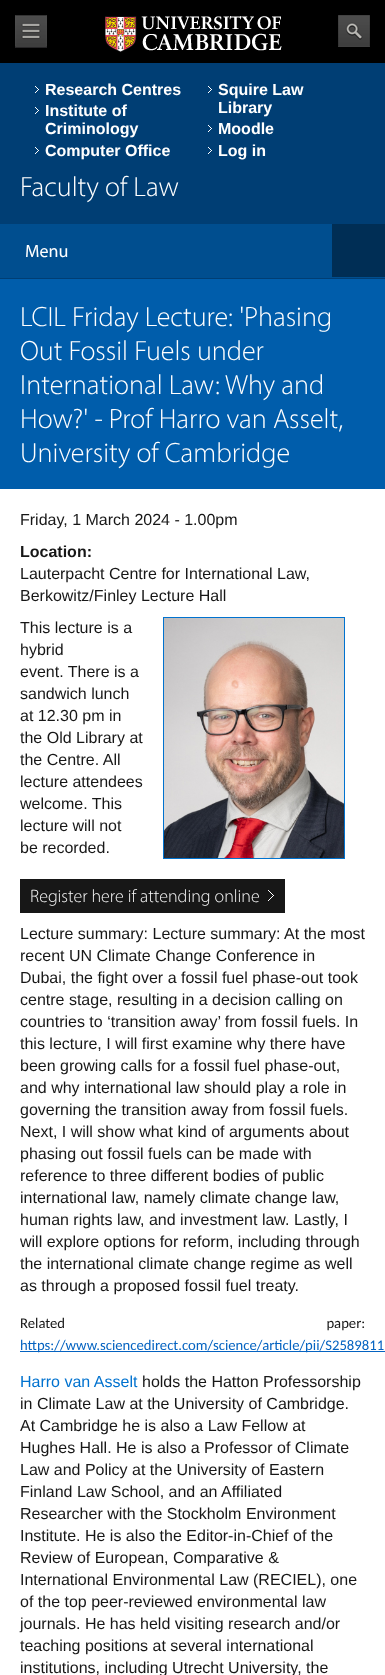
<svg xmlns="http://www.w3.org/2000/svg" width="385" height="1675">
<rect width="100%" height="100%" fill="#000"/>
<image x="15" y="15" width="32" height="33" href="media/1.png"/>
<image x="105" y="16" width="177" height="36" href="media/2.png"/>
<image x="338" y="15" width="32" height="32" href="media/3.png"/>
<rect y="63" width="385" height="161" fill="#003e74"/>
<image x="35" y="86" width="4" height="7" href="media/4.png"/>
<text x="45" y="95" style="font-family:Liberation Sans;font-size:16px;font-weight:bold;fill:#fff">Research Centres</text>
<image x="208" y="86" width="4" height="7" href="media/4.png"/>
<text x="218" y="95" style="font-family:Liberation Sans;font-size:16px;font-weight:bold;fill:#fff">Squire Law</text>
<text x="218" y="113" style="font-family:Liberation Sans;font-size:16px;font-weight:bold;fill:#fff">Library</text>
<image x="35" y="107" width="4" height="7" href="media/4.png"/>
<text x="45" y="116" style="font-family:Liberation Sans;font-size:16px;font-weight:bold;fill:#fff">Institute of</text>
<text x="45" y="134" style="font-family:Liberation Sans;font-size:16px;font-weight:bold;fill:#fff">Criminology</text>
<image x="208" y="125" width="4" height="7" href="media/4.png"/>
<text x="218" y="134" style="font-family:Liberation Sans;font-size:16px;font-weight:bold;fill:#fff">Moodle</text>
<image x="35" y="147" width="4" height="7" href="media/4.png"/>
<text x="45" y="156" style="font-family:Liberation Sans;font-size:16px;font-weight:bold;fill:#fff">Computer Office</text>
<image x="208" y="147" width="4" height="7" href="media/4.png"/>
<text x="218" y="156" style="font-family:Liberation Sans;font-size:16px;font-weight:bold;fill:#fff">Log in</text>
<text x="20" y="196" style="font-family:Myriad;font-size:28px;font-weight:300;fill:#fff">Faculty of Law</text>
<rect y="224" width="385" height="54" fill="#004e8f"/>
<rect y="278" width="385" height="1" fill="#003e74"/>
<text x="25" y="257" style="font-family:Myriad;font-size:18px;fill:#fff">Menu</text>
<rect x="332" y="224" width="53" height="53" fill="#002e55"/>
<rect y="279" width="385" height="210" fill="#005dab"/>
<text x="20" y="326" style="font-family:Myriad;font-size:28px;font-weight:300;fill:#fff">LCIL Friday Lecture: 'Phasing</text>
<text x="20" y="360" style="font-family:Myriad;font-size:28px;font-weight:300;fill:#fff">Out Fossil Fuels under</text>
<text x="20" y="394" style="font-family:Myriad;font-size:28px;font-weight:300;fill:#fff">International Law: Why and</text>
<text x="20" y="428" style="font-family:Myriad;font-size:28px;font-weight:300;fill:#fff">How?' - Prof Harro van Asselt,</text>
<text x="20" y="462" style="font-family:Myriad;font-size:28px;font-weight:300;fill:#fff">University of Cambridge</text>
<rect y="489" width="385" height="1186" fill="#fff"/>
<text x="20" y="525" style="font-family:Liberation Sans;font-size:16px;fill:#171717">Friday, 1 March 2024 - 1.00pm</text>
<text x="20" y="557" style="font-family:Liberation Sans;font-size:16px;font-weight:bold;fill:#171717">Location:</text>
<text x="20" y="579" style="font-family:Liberation Sans;font-size:16px;fill:#171717">Lauterpacht Centre for International Law,</text>
<text x="20" y="601" style="font-family:Liberation Sans;font-size:16px;fill:#171717">Berkowitz/Finley Lecture Hall</text>
<text x="20" y="633" style="font-family:Liberation Sans;font-size:16px;fill:#171717">This lecture is a</text>
<rect x="163.5" y="617.5" width="181" height="241" fill="none" stroke="#0072cf"/>
<image x="164" y="618" width="180" height="240" href="media/5.png"/>
<text x="20" y="655" style="font-family:Liberation Sans;font-size:16px;fill:#171717">hybrid</text>
<text x="20" y="677" style="font-family:Liberation Sans;font-size:16px;fill:#171717">event. There is a</text>
<text x="20" y="699" style="font-family:Liberation Sans;font-size:16px;fill:#171717">sandwich lunch</text>
<text x="20" y="721" style="font-family:Liberation Sans;font-size:16px;fill:#171717">at 12.30 pm in</text>
<text x="20" y="743" style="font-family:Liberation Sans;font-size:16px;fill:#171717">the Old Library at</text>
<text x="20" y="765" style="font-family:Liberation Sans;font-size:16px;fill:#171717">the Centre. All</text>
<text x="20" y="787" style="font-family:Liberation Sans;font-size:16px;fill:#171717">lecture attendees</text>
<text x="20" y="809" style="font-family:Liberation Sans;font-size:16px;fill:#171717">welcome. This</text>
<text x="20" y="831" style="font-family:Liberation Sans;font-size:16px;fill:#171717">lecture will not</text>
<text x="20" y="853" style="font-family:Liberation Sans;font-size:16px;fill:#171717">be recorded.</text>
<rect x="20" y="879" width="265" height="34" fill="#171717"/>
<image x="268" y="890" width="6" height="11" href="media/6.png"/>
<text x="30" y="902" style="font-family:Myriad;font-size:18px;font-weight:300;fill:#f8f8f8">Register here if attending online</text>
<text x="20" y="939" style="font-family:Liberation Sans;font-size:16px;fill:#171717">Lecture summary: Lecture summary: At the most</text>
<text x="20" y="961" style="font-family:Liberation Sans;font-size:16px;fill:#171717">recent UN Climate Change Conference in</text>
<text x="20" y="983" style="font-family:Liberation Sans;font-size:16px;fill:#171717">Dubai, the fight over a fossil fuel phase-out took</text>
<text x="20" y="1005" style="font-family:Liberation Sans;font-size:16px;fill:#171717">centre stage, resulting in a decision calling on</text>
<text x="20" y="1027" style="font-family:Liberation Sans;font-size:16px;fill:#171717">countries to ‘transition away’ from fossil fuels. In</text>
<text x="20" y="1049" style="font-family:Liberation Sans;font-size:16px;fill:#171717">this lecture, I will first examine why there have</text>
<text x="20" y="1071" style="font-family:Liberation Sans;font-size:16px;fill:#171717">been growing calls for a fossil fuel phase-out,</text>
<text x="20" y="1093" style="font-family:Liberation Sans;font-size:16px;fill:#171717">and why international law should play a role in</text>
<text x="20" y="1115" style="font-family:Liberation Sans;font-size:16px;fill:#171717">governing the transition away from fossil fuels.</text>
<text x="20" y="1137" style="font-family:Liberation Sans;font-size:16px;fill:#171717">Next, I will show what kind of arguments about</text>
<text x="20" y="1159" style="font-family:Liberation Sans;font-size:16px;fill:#171717">phasing out fossil fuels can be made with</text>
<text x="20" y="1181" style="font-family:Liberation Sans;font-size:16px;fill:#171717">reference to three different bodies of public</text>
<text x="20" y="1203" style="font-family:Liberation Sans;font-size:16px;fill:#171717">international law, namely climate change law,</text>
<text x="20" y="1225" style="font-family:Liberation Sans;font-size:16px;fill:#171717">human rights law, and investment law. Lastly, I</text>
<text x="20" y="1247" style="font-family:Liberation Sans;font-size:16px;fill:#171717">will explore options for reform, including through</text>
<text x="20" y="1269" style="font-family:Liberation Sans;font-size:16px;fill:#171717">the international climate change regime as well</text>
<text x="20" y="1291" style="font-family:Liberation Sans;font-size:16px;fill:#171717">as through a proposed fossil fuel treaty.</text>
<text x="20" y="1328" word-spacing="258" style="font-family:Carlito;font-size:14.7px;fill:#171717">Related paper:</text>
<rect x="20" y="1351" width="365" height="1" fill="#0563c1"/>
<text x="20" y="1350" style="font-family:Carlito;font-size:14.7px;fill:#0563c1">https://www.sciencedirect.com/science/article/pii/S2589811</text>
<text x="20" y="1387" style="font-family:Liberation Sans;font-size:16px;fill:#0072cf">Harro van Asselt</text>
<text x="142" y="1387" style="font-family:Liberation Sans;font-size:16px;fill:#171717">holds the Hatton Professorship</text>
<text x="20" y="1409" style="font-family:Liberation Sans;font-size:16px;fill:#171717">in Climate Law at the University of Cambridge.</text>
<text x="20" y="1431" style="font-family:Liberation Sans;font-size:16px;fill:#171717">At Cambridge he is also a Law Fellow at</text>
<text x="20" y="1453" style="font-family:Liberation Sans;font-size:16px;fill:#171717">Hughes Hall. He is also a Professor of Climate</text>
<text x="20" y="1475" style="font-family:Liberation Sans;font-size:16px;fill:#171717">Law and Policy at the University of Eastern</text>
<text x="20" y="1497" style="font-family:Liberation Sans;font-size:16px;fill:#171717">Finland Law School, and an Affiliated</text>
<text x="20" y="1519" style="font-family:Liberation Sans;font-size:16px;fill:#171717">Researcher with the Stockholm Environment</text>
<text x="20" y="1541" style="font-family:Liberation Sans;font-size:16px;fill:#171717">Institute. He is also the Editor-in-Chief of the</text>
<text x="20" y="1563" style="font-family:Liberation Sans;font-size:16px;fill:#171717">Review of European, Comparative &amp;</text>
<text x="20" y="1585" style="font-family:Liberation Sans;font-size:16px;fill:#171717">International Environmental Law (RECIEL), one</text>
<text x="20" y="1607" style="font-family:Liberation Sans;font-size:16px;fill:#171717">of the top peer-reviewed environmental law</text>
<text x="20" y="1629" style="font-family:Liberation Sans;font-size:16px;fill:#171717">journals. He has held visiting research and/or</text>
<text x="20" y="1651" style="font-family:Liberation Sans;font-size:16px;fill:#171717">teaching positions at several international</text>
<text x="20" y="1673" style="font-family:Liberation Sans;font-size:16px;fill:#171717">institutions, including Utrecht University, the</text>
</svg>
